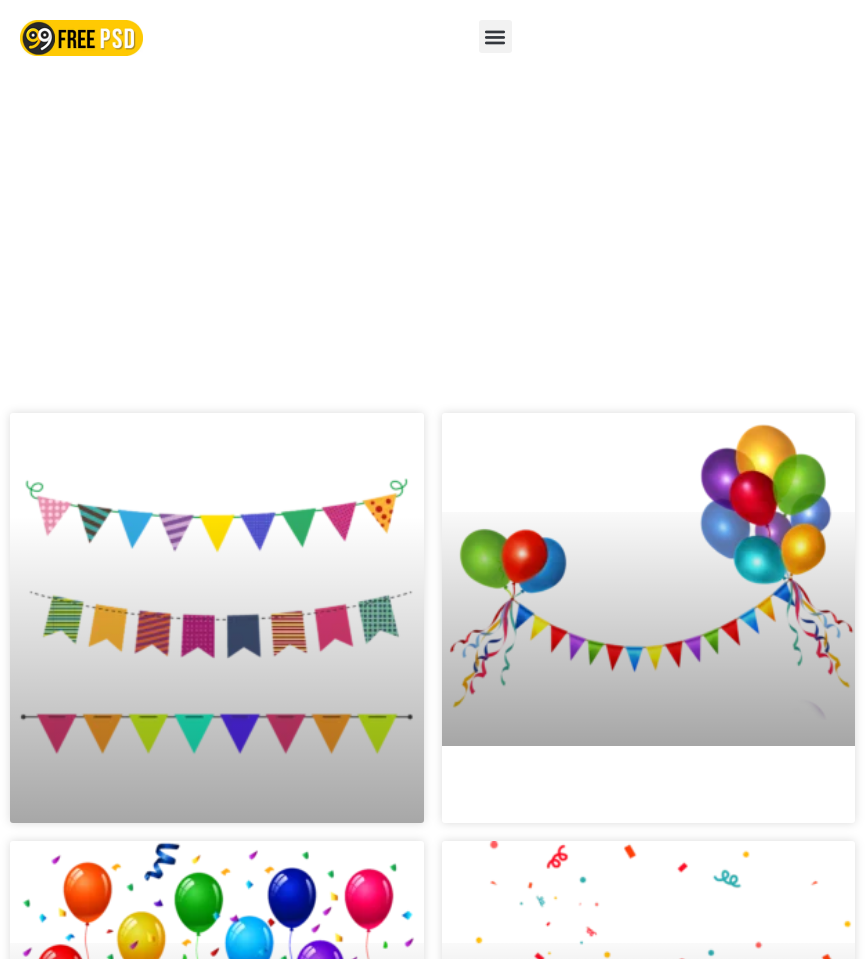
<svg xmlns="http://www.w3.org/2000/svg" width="865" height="959">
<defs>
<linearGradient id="g1" gradientUnits="userSpaceOnUse" x1="217" y1="828" x2="217" y2="413"><stop offset="0" stop-color="#000" stop-opacity="0.35"/><stop offset="0.75" stop-color="#000" stop-opacity="0"/></linearGradient>
<linearGradient id="g2" gradientUnits="userSpaceOnUse" x1="649" y1="746" x2="649" y2="413"><stop offset="0" stop-color="#000" stop-opacity="0.35"/><stop offset="0.75" stop-color="#000" stop-opacity="0"/></linearGradient>
<linearGradient id="g3" gradientUnits="userSpaceOnUse" x1="217" y1="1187" x2="217" y2="841"><stop offset="0" stop-color="#000" stop-opacity="0.35"/><stop offset="0.75" stop-color="#000" stop-opacity="0"/></linearGradient>
<linearGradient id="g4" gradientUnits="userSpaceOnUse" x1="649" y1="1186" x2="649" y2="841"><stop offset="0" stop-color="#000" stop-opacity="0.35"/><stop offset="0.75" stop-color="#000" stop-opacity="0"/></linearGradient>
</defs>
<rect width="100%" height="100%" fill="#fff"/>
<image x="20" y="20" width="123" height="36" href="media/1.png"/>
<rect x="479" y="20" width="33" height="33" rx="3" fill="#f2f2f2"/>
<image x="484" y="30" width="22" height="15" href="media/2.png"/>
<rect x="10" y="413" width="414" height="410" rx="3" fill="#00000026" filter="blur(5px)"/>
<rect x="10" y="413" width="414" height="410" rx="3" fill="#fff"/>
<image x="19" y="478" width="395" height="277" href="media/3.png"/>
<rect x="10" y="413" width="414" height="410" rx="3" fill="url(#g1)"/>
<rect x="442" y="413" width="413" height="410" rx="3" fill="#00000026" filter="blur(5px)"/>
<rect x="442" y="413" width="413" height="410" rx="3" fill="#fff"/>
<image x="449" y="424" width="405" height="296" href="media/4.png"/>
<rect x="442" y="512" width="413" height="234" fill="url(#g2)"/>
<rect x="10" y="841" width="414" height="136" rx="3" fill="#00000026" filter="blur(5px)"/>
<rect x="10" y="841" width="414" height="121" rx="3" fill="#fff"/>
<image x="22" y="842" width="393" height="117" href="media/5.png"/>
<rect x="10" y="943" width="414" height="16" fill="url(#g3)"/>
<rect x="442" y="841" width="413" height="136" rx="3" fill="#00000026" filter="blur(5px)"/>
<rect x="442" y="841" width="413" height="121" rx="3" fill="#fff"/>
<image x="475" y="841" width="377" height="118" href="media/6.png"/>
<rect x="442" y="943" width="413" height="16" fill="url(#g4)"/>
</svg>
